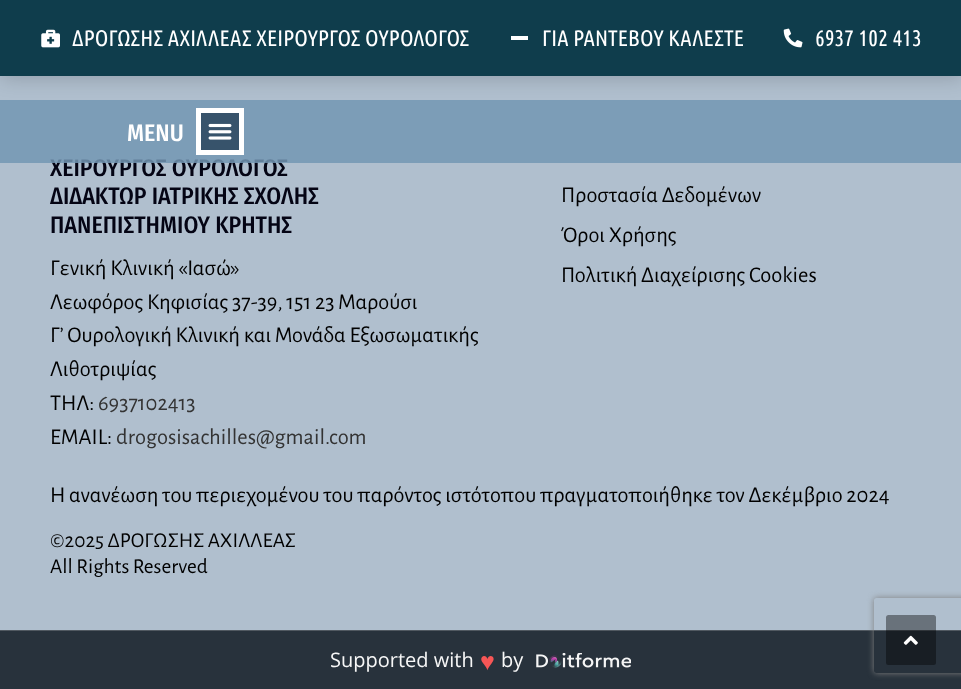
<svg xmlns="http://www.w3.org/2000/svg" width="961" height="689">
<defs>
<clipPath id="clip1"><path d="M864 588h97v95h-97zm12.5 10h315c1.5 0 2.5 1 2.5 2.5v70c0 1.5-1 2.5-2.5 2.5h-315c-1.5 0-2.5-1-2.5-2.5v-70c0-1.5 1-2.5 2.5-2.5z" clip-rule="evenodd"/></clipPath>
</defs>
<rect width="100%" height="100%" fill="#b0bfce"/>
<rect x="1" y="1" width="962" height="77" fill="#0000002e" filter="blur(9.5px)"/>
<rect width="961" height="76" fill="#0f3d4c"/>
<image x="41" y="29" width="19" height="19" href="media/1.png"/>
<text x="72" y="46" style="font-family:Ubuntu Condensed;font-size:22.5px;letter-spacing:0.1px;fill:#fff">ΔΡΟΓΩΣΗΣ ΑΧΙΛΛΕΑΣ ΧΕΙΡΟΥΡΓΟΣ ΟΥΡΟΛΟΓΟΣ</text>
<rect x="511" y="36" width="17" height="4" fill="#fff"/>
<text x="542" y="46" style="font-family:Ubuntu Condensed;font-size:22.5px;letter-spacing:0.1px;fill:#fff">ΓΙΑ ΡΑΝΤΕΒΟΥ ΚΑΛΕΣΤΕ</text>
<image x="783" y="28" width="20" height="20" href="media/2.png"/>
<text x="815" y="46" style="font-family:Ubuntu Condensed;font-size:22.5px;letter-spacing:0.1px;fill:#fff">6937 102 413</text>
<text x="50" y="176" style="font-family:Fira Sans Condensed;font-size:23.75px;font-weight:500;fill:#040414">ΧΕΙΡΟΥΡΓΟΣ ΟΥΡΟΛΟΓΟΣ</text>
<rect y="100" width="961" height="63" fill="#7397b3d9"/>
<text x="127" y="141" style="font-family:Fira Sans Condensed;font-size:23.75px;font-weight:500;fill:#fff">MENU</text>
<rect x="198.5" y="110.5" width="43" height="42" fill="#37536b" stroke="#fff" stroke-width="5"/>
<image x="208" y="123" width="24" height="17" href="media/3.png"/>
<text x="50" y="204" style="font-family:Fira Sans Condensed;font-size:23.75px;font-weight:500;fill:#040414">ΔΙΔΑΚΤΩΡ ΙΑΤΡΙΚΗΣ ΣΧΟΛΗΣ</text>
<text x="50" y="233" style="font-family:Fira Sans Condensed;font-size:23.75px;font-weight:500;fill:#040414">ΠΑΝΕΠΙΣΤΗΜΙΟΥ ΚΡΗΤΗΣ</text>
<text x="50" y="275" style="font-family:Alegreya Sans;font-size:22.5px;fill:#000">Γενική Κλινική «Ιασώ»</text>
<text x="50" y="309" style="font-family:Alegreya Sans;font-size:22.5px;fill:#000">Λεωφόρος Κηφισίας 37-39, 151 23 Μαρούσι</text>
<text x="50" y="342" style="font-family:Alegreya Sans;font-size:22.5px;fill:#000">Γ’ Ουρολογική Κλινική και Μονάδα Εξωσωματικής</text>
<text x="50" y="376" style="font-family:Alegreya Sans;font-size:22.5px;fill:#000">Λιθοτριψίας</text>
<text x="50" y="410" style="font-family:Alegreya Sans;font-size:22.5px;fill:#000">ΤΗΛ:</text>
<text x="98" y="410" style="font-family:Alegreya Sans;font-size:22.5px;fill:#333">6937102413</text>
<text x="50" y="444" style="font-family:Alegreya Sans;font-size:22.5px;fill:#000">EMAIL:</text>
<text x="116" y="444" style="font-family:Alegreya Sans;font-size:22.5px;fill:#333">drogosisachilles@gmail.com</text>
<text x="561" y="202" style="font-family:Alegreya Sans;font-size:22.5px;fill:#000">Προστασία Δεδομένων</text>
<text x="561" y="242" style="font-family:Alegreya Sans;font-size:22.5px;fill:#000">Όροι Χρήσης</text>
<text x="561" y="282" style="font-family:Alegreya Sans;font-size:22.5px;fill:#000">Πολιτική Διαχείρισης Cookies</text>
<text x="50" y="502" style="font-family:Alegreya Sans;font-size:22.5px;fill:#000">Η ανανέωση του περιεχομένου του παρόντος ιστότοπου πραγματοποιήθηκε τον Δεκέμβριο 2024</text>
<text x="50" y="547" style="font-family:Alegreya Sans;font-size:21.25px;fill:#000">©2025 ΔΡΟΓΩΣΗΣ ΑΧΙΛΛΕΑΣ</text>
<text x="50" y="573" style="font-family:Alegreya Sans;font-size:21.25px;fill:#000">All Rights Reserved</text>
<rect y="631" width="961" height="58" fill="#28323c"/>
<rect y="630" width="961" height="1" fill="#515961"/>
<text x="330" y="667" style="font-family:Open Sans;font-size:20px;fill:#f7f7f7">Supported with</text>
<text x="480" y="670" style="font-family:Liberation Sans;font-size:25px;fill:#f75656">♥</text>
<text x="501" y="667" style="font-family:Open Sans;font-size:20px;fill:#f7f7f7">by</text>
<image x="536" y="653" width="95" height="15" href="media/4.png"/>
<g clip-path="url(#clip1)">
<rect x="874" y="598" width="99" height="75" rx="2.5" fill="#808080" filter="blur(3px)"/>
</g>
<rect x="886" y="615" width="50" height="50" rx="2.5" fill="#00000066"/>
<image x="903" y="635" width="15" height="10" href="media/5.png"/>
</svg>
